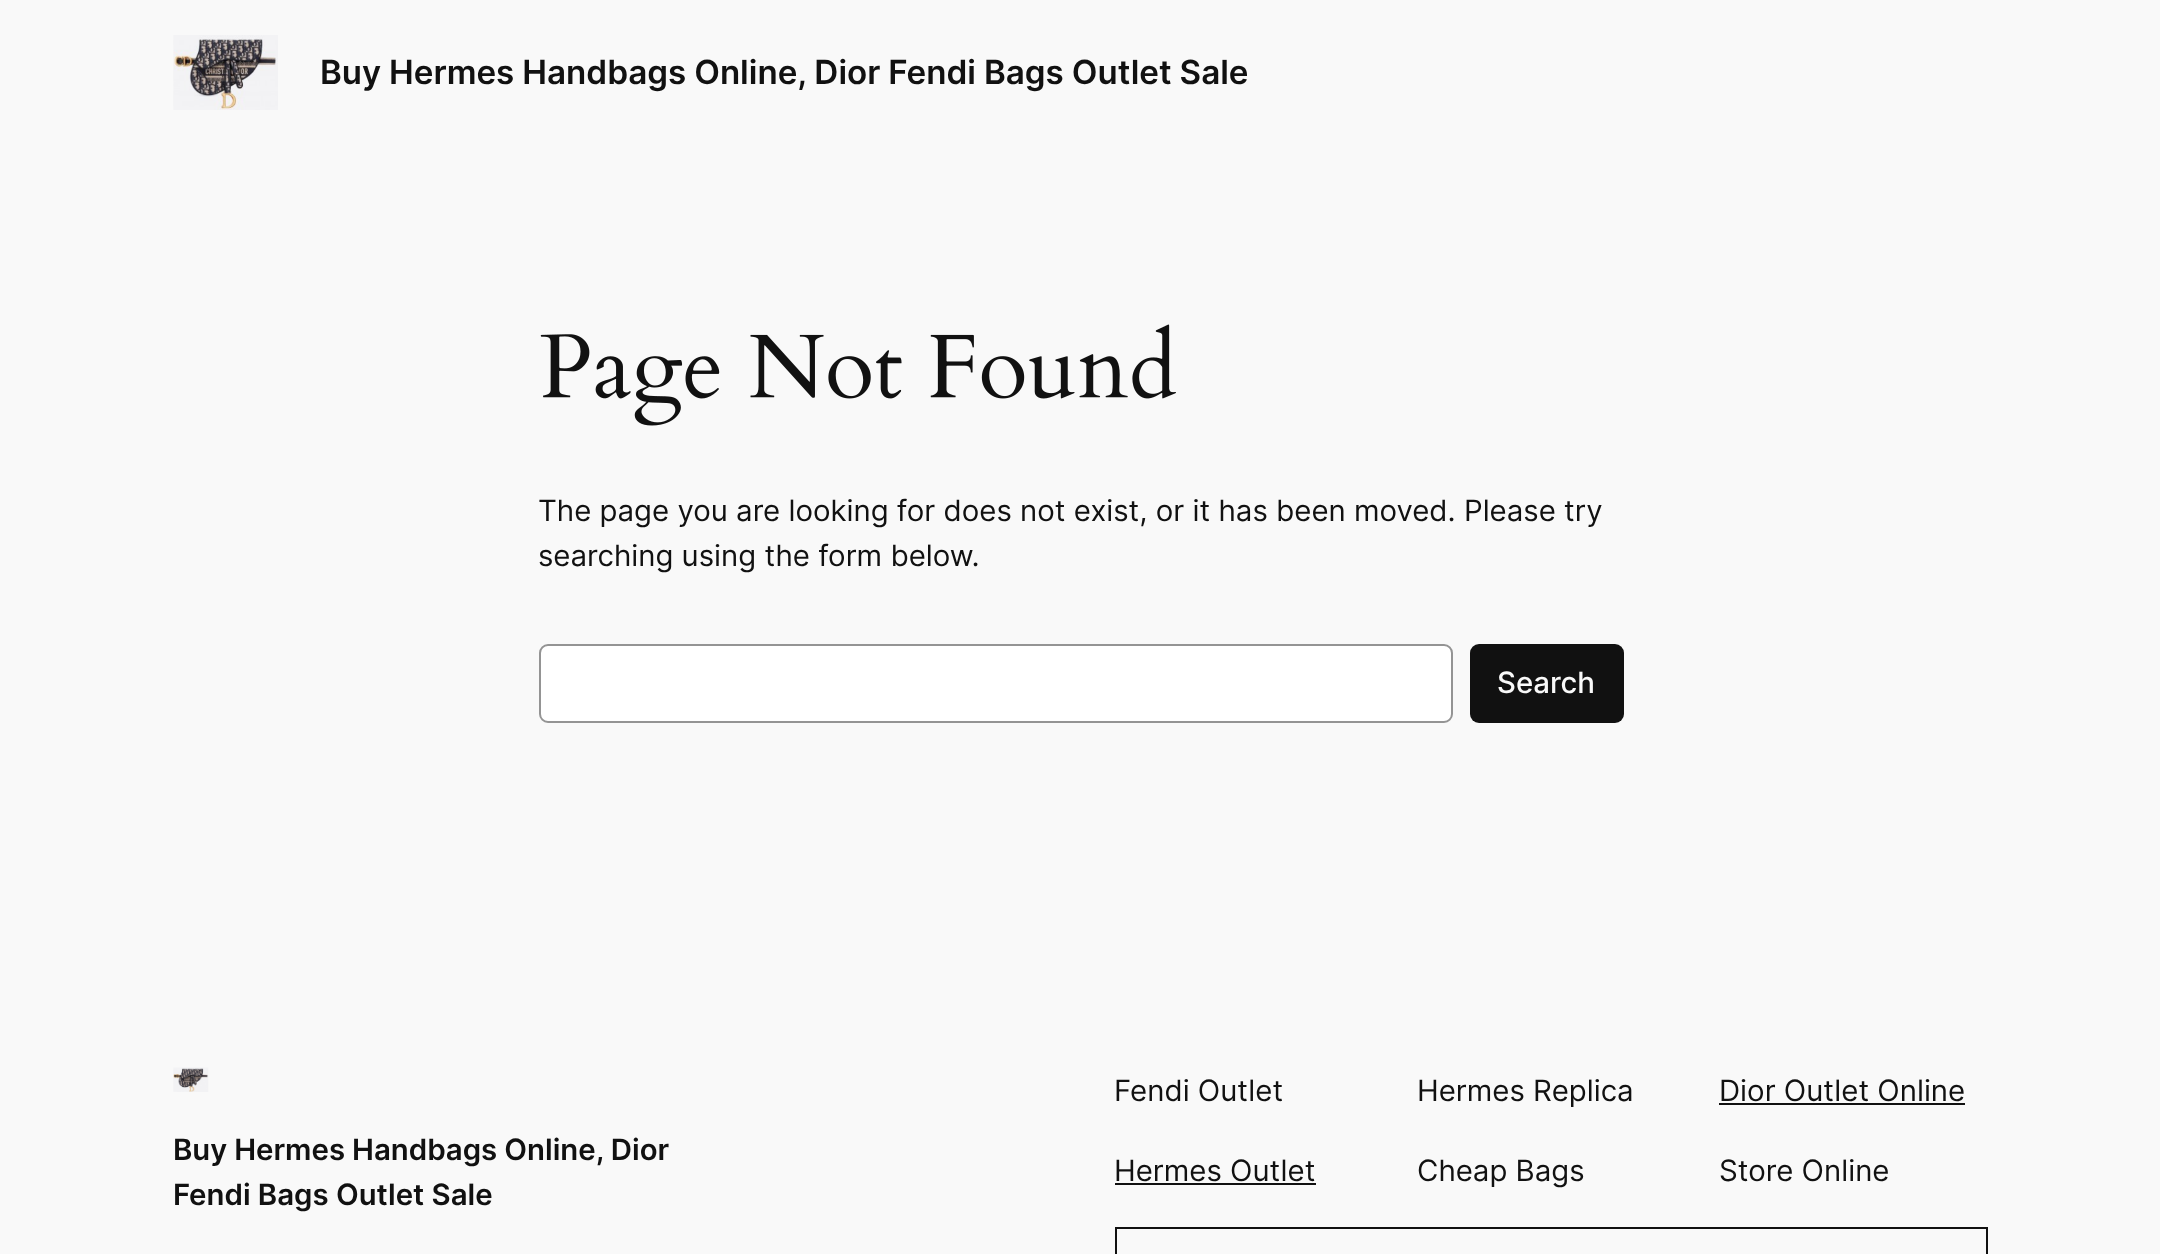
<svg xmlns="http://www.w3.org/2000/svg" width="2160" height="1254">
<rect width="100%" height="100%" fill="#f9f9f9"/>
<image x="173" y="35" width="105" height="75" href="media/1.png"/>
<text x="320" y="84" word-spacing="-0.25" style="font-family:Inter;font-size:33.2px;font-weight:600;fill:#111">Buy Hermes Handbags Online, Dior Fendi Bags Outlet Sale</text>
<image x="540" y="324" width="636" height="102" href="media/2.png"/>
<text x="538" y="521" style="font-family:Inter;font-size:29.4px;fill:#111">The page you are looking for does not exist, or it has been moved. Please try</text>
<text x="538" y="566" style="font-family:Inter;font-size:29.4px;fill:#111">searching using the form below.</text>
<rect x="540" y="645" width="912" height="77" rx="8" fill="#fff" stroke="#949494" stroke-width="2"/>
<rect x="1470" y="644" width="154" height="79" rx="9" fill="#111"/>
<text x="1497" y="693" style="font-family:Inter;font-size:29.4px;font-weight:500;fill:#f9f9f9">Search</text>
<image x="173" y="1067" width="36" height="25" href="media/3.png"/>
<text x="173" y="1160" word-spacing="-0.25" style="font-family:Inter;font-size:29.4px;font-weight:600;fill:#111">Buy Hermes Handbags Online, Dior</text>
<text x="173" y="1205" style="font-family:Inter;font-size:29.4px;font-weight:600;fill:#111">Fendi Bags Outlet Sale</text>
<text x="1114" y="1101" style="font-family:Inter;font-size:29.4px;fill:#111">Fendi Outlet</text>
<text x="1417" y="1101" style="font-family:Inter;font-size:29.4px;fill:#111">Hermes Replica</text>
<text x="1719" y="1101" style="font-family:Inter;font-size:29.4px;fill:#111">Dior Outlet Online</text>
<rect x="1719" y="1103" width="246" height="2" fill="#111"/>
<text x="1114" y="1181" style="font-family:Inter;font-size:29.4px;fill:#111">Hermes Outlet</text>
<rect x="1115" y="1183" width="201" height="2" fill="#111"/>
<text x="1417" y="1181" style="font-family:Inter;font-size:29.4px;fill:#111">Cheap Bags</text>
<text x="1719" y="1181" style="font-family:Inter;font-size:29.4px;fill:#111">Store Online</text>
<rect x="1115" y="1227" width="873" height="2" fill="#111"/>
<rect x="1986" y="1227" width="2" height="27" fill="#111"/>
<rect x="1115" y="1227" width="2" height="27" fill="#111"/>
</svg>
